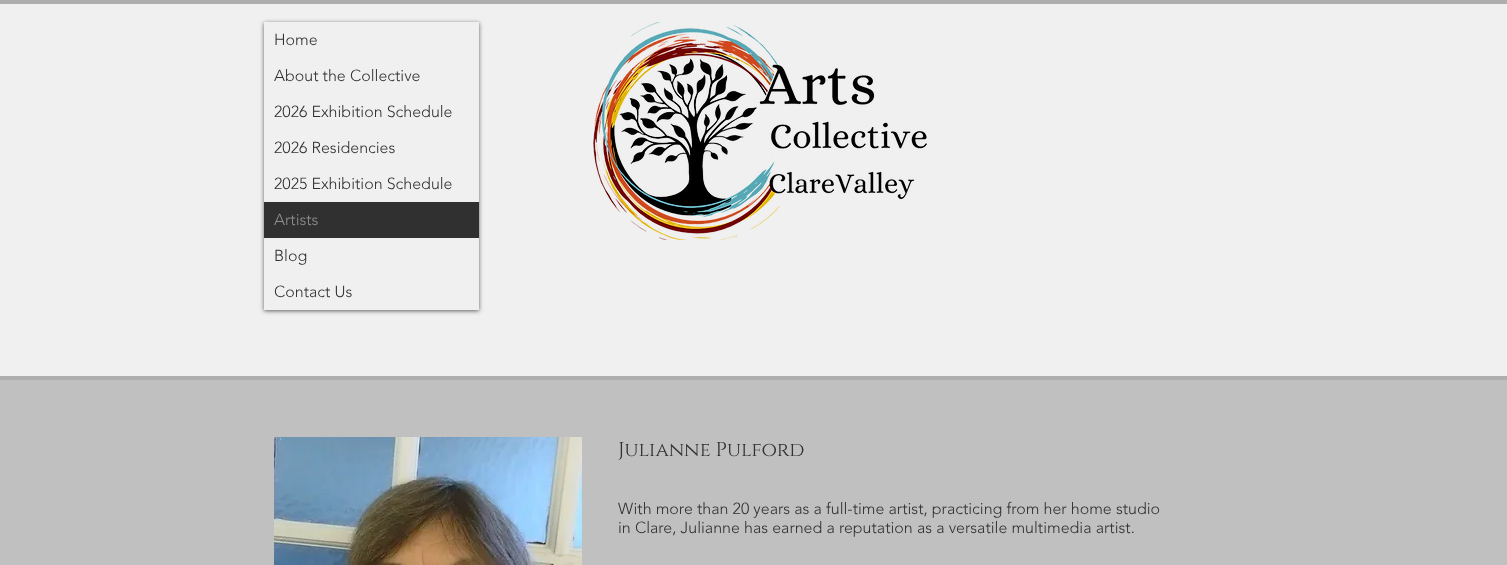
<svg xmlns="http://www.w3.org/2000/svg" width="1507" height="565">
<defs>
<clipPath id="clip1"><path d="M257 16h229v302h-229zm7 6h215v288h-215z" clip-rule="evenodd"/></clipPath>
</defs>
<rect width="100%" height="100%" fill="#f0f0f0"/>
<rect width="1507" height="4" fill="#aeaeae"/>
<rect y="376" width="1507" height="4" fill="#aeaeae"/>
<g clip-path="url(#clip1)">
<rect x="264" y="23" width="215" height="288" fill="#00000099" filter="blur(2px)"/>
</g>
<text x="274" y="45" style="font-family:'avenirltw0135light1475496';font-size:16px;font-weight:300;fill:#303030">Home</text>
<text x="274" y="81" style="font-family:'avenirltw0135light1475496';font-size:16px;font-weight:300;fill:#303030">About the Collective</text>
<text x="274" y="117" style="font-family:'avenirltw0135light1475496';font-size:16px;font-weight:300;fill:#303030">2026 Exhibition Schedule</text>
<text x="274" y="153" style="font-family:'avenirltw0135light1475496';font-size:16px;font-weight:300;fill:#303030">2026 Residencies</text>
<text x="274" y="189" style="font-family:'avenirltw0135light1475496';font-size:16px;font-weight:300;fill:#303030">2025 Exhibition Schedule</text>
<rect x="264" y="202" width="215" height="36" fill="#303030"/>
<text x="274" y="225" style="font-family:'avenirltw0135light1475496';font-size:16px;font-weight:300;fill:#909090">Artists</text>
<text x="274" y="261" style="font-family:'avenirltw0135light1475496';font-size:16px;font-weight:300;fill:#303030">Blog</text>
<text x="274" y="297" style="font-family:'avenirltw0135light1475496';font-size:16px;font-weight:300;fill:#303030">Contact Us</text>
<image x="593" y="22" width="334" height="218" href="media/1.png"/>
<rect y="380" width="1507" height="185" fill="#c0c0c0"/>
<image x="274" y="437" width="308" height="128" href="media/2.png"/>
<text x="618" y="456" style="font-family:Cinzel;font-size:20px;fill:#303030">Julianne Pulford</text>
<text x="618" y="514" style="font-family:'avenirltw0135light1475496';font-size:16px;font-weight:300;fill:#303030">With more than 20 years as a full-time artist, practicing from her home studio</text>
<text x="618" y="533" style="font-family:'avenirltw0135light1475496';font-size:16px;font-weight:300;fill:#303030">in Clare, Julianne has earned a reputation as a versatile multimedia artist.</text>
</svg>
